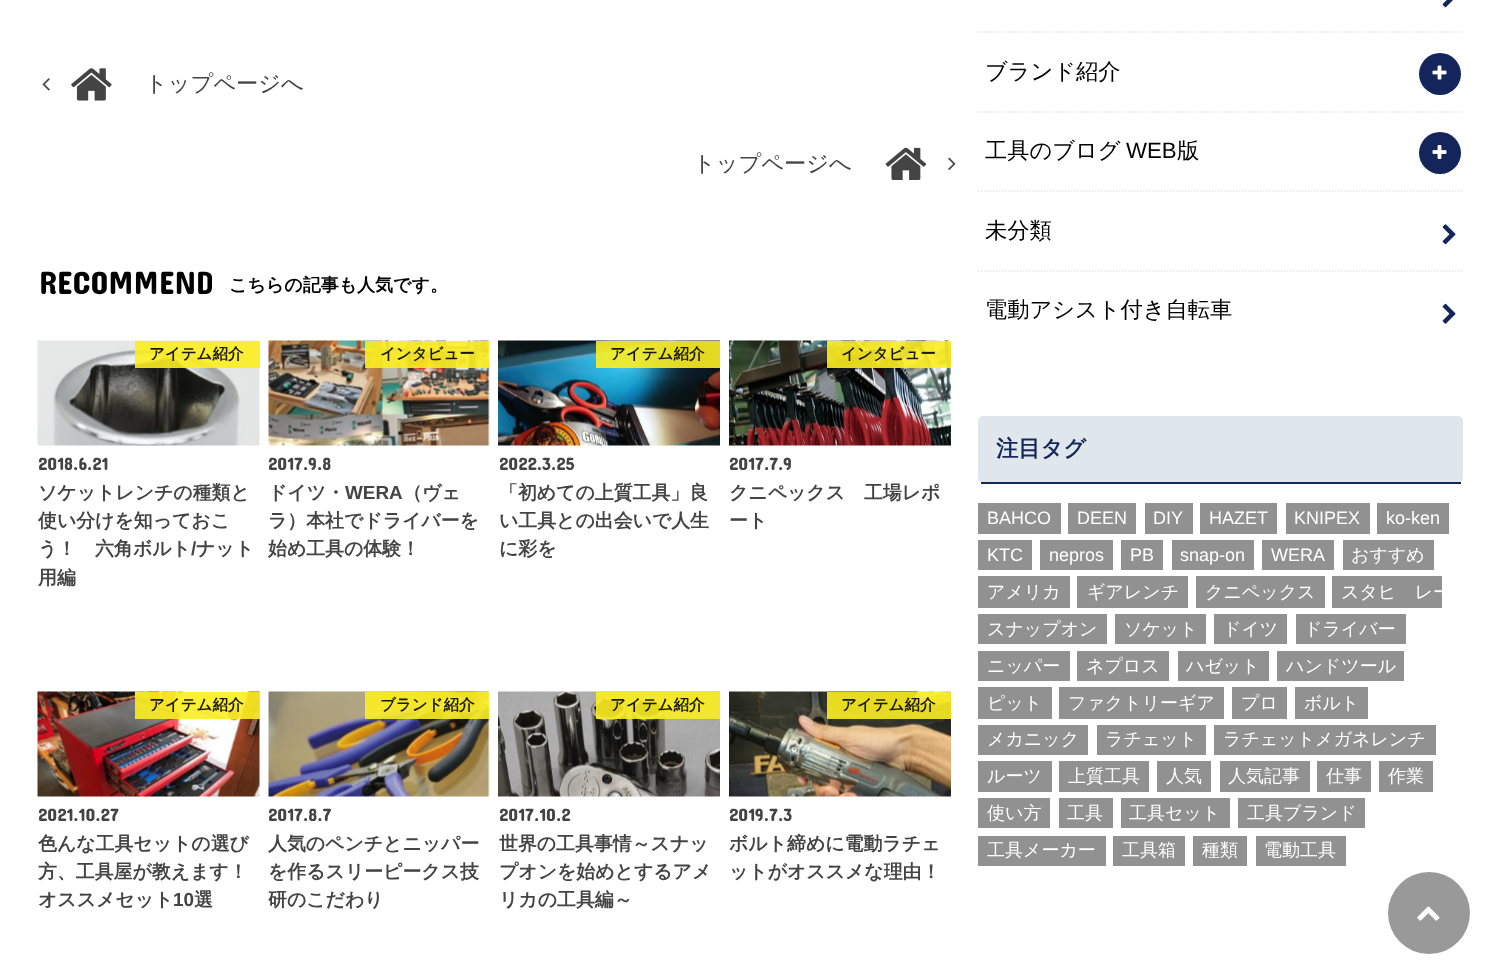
<svg xmlns="http://www.w3.org/2000/svg" width="1499" height="969">
<style>*{font-kerning:none!important;font-variant-ligatures:none!important}</style>
<rect width="100%" height="100%" fill="#fff"/>
<image x="42" y="78" width="8" height="13" href="media/1.png"/>
<image x="71" y="68" width="41" height="33" href="media/2.png"/>
<text x="145" y="91" style="font-family:WenQuanYi Zen Hei;font-size:22.25px;font-weight:500;fill:#444">トップページへ</text>
<text x="693" y="171" style="font-family:WenQuanYi Zen Hei;font-size:22.25px;font-weight:500;fill:#444">トップページへ</text>
<image x="885" y="147" width="42" height="33" href="media/3.png"/>
<image x="948" y="157" width="8" height="13" href="media/4.png"/>
<text x="39" y="294" style="font-family:Concert One;font-size:32.5px;fill:#000">RECOMMEND</text>
<text x="229" y="291" style="font-family:WenQuanYi Zen Hei;font-size:18px;font-weight:bold;fill:#000">こちらの記事も人気です。</text>
<image x="37" y="340" width="223" height="106" href="media/5.png"/>
<rect x="135" y="341" width="125" height="27" fill="#fcee21e6"/>
<text x="149" y="359" style="font-family:WenQuanYi Zen Hei;font-size:15.5px;font-weight:bold;fill:#191805">アイテム紹介</text>
<text x="38" y="470" style="font-family:Concert One;font-size:18px;fill:#444">2018.6.21</text>
<text x="38" y="499" style="font-family:WenQuanYi Zen Hei;font-size:18.9px;font-weight:bold;fill:#444">ソケットレンチの種類と</text>
<text x="38" y="527" style="font-family:WenQuanYi Zen Hei;font-size:18.9px;font-weight:bold;fill:#444">使い分けを知っておこ</text>
<text x="38" y="555" style="font-family:WenQuanYi Zen Hei;font-size:18.9px;font-weight:bold;fill:#444">う！　六角ボルト</text>
<text x="191" y="555" style="font-family:Liberation Sans;font-size:18.9px;font-weight:bold;fill:#444">/</text>
<text x="196" y="555" style="font-family:WenQuanYi Zen Hei;font-size:18.9px;font-weight:bold;fill:#444">ナット</text>
<text x="38" y="584" style="font-family:WenQuanYi Zen Hei;font-size:18.9px;font-weight:bold;fill:#444">用編</text>
<image x="268" y="340" width="222" height="106" href="media/6.png"/>
<rect x="365" y="341" width="124" height="27" fill="#fcee21e6"/>
<text x="380" y="359" style="font-family:WenQuanYi Zen Hei;font-size:15.5px;font-weight:bold;fill:#191805">インタビュー</text>
<text x="268" y="470" style="font-family:Concert One;font-size:18px;fill:#444">2017.9.8</text>
<text x="268" y="499" style="font-family:WenQuanYi Zen Hei;font-size:18.9px;font-weight:bold;fill:#444">ドイツ・</text>
<text x="345" y="499" style="font-family:Liberation Sans;font-size:18.9px;font-weight:bold;fill:#444">WERA</text>
<text x="403" y="499" style="font-family:WenQuanYi Zen Hei;font-size:18.9px;font-weight:bold;fill:#444">（ヴェ</text>
<text x="268" y="527" style="font-family:WenQuanYi Zen Hei;font-size:18.9px;font-weight:bold;fill:#444">ラ）本社でドライバーを</text>
<text x="268" y="555" style="font-family:WenQuanYi Zen Hei;font-size:18.9px;font-weight:bold;fill:#444">始め工具の体験！</text>
<image x="498" y="340" width="222" height="106" href="media/7.png"/>
<rect x="596" y="341" width="124" height="27" fill="#fcee21e6"/>
<text x="610" y="359" style="font-family:WenQuanYi Zen Hei;font-size:15.5px;font-weight:bold;fill:#191805">アイテム紹介</text>
<text x="499" y="470" style="font-family:Concert One;font-size:18px;fill:#444">2022.3.25</text>
<text x="499" y="499" style="font-family:WenQuanYi Zen Hei;font-size:18.9px;font-weight:bold;fill:#444">「初めての上質工具」良</text>
<text x="499" y="527" style="font-family:WenQuanYi Zen Hei;font-size:18.9px;font-weight:bold;fill:#444">い工具との出会いで人生</text>
<text x="499" y="555" style="font-family:WenQuanYi Zen Hei;font-size:18.9px;font-weight:bold;fill:#444">に彩を</text>
<image x="729" y="340" width="222" height="106" href="media/8.png"/>
<rect x="827" y="341" width="124" height="27" fill="#fcee21e6"/>
<text x="841" y="359" style="font-family:WenQuanYi Zen Hei;font-size:15.5px;font-weight:bold;fill:#191805">インタビュー</text>
<text x="729" y="470" style="font-family:Concert One;font-size:18px;fill:#444">2017.7.9</text>
<text x="729" y="499" style="font-family:WenQuanYi Zen Hei;font-size:18.9px;font-weight:bold;fill:#444">クニペックス　工場レポ</text>
<text x="729" y="527" style="font-family:WenQuanYi Zen Hei;font-size:18.9px;font-weight:bold;fill:#444">ート</text>
<image x="37" y="691" width="223" height="106" href="media/9.png"/>
<rect x="135" y="692" width="125" height="27" fill="#fcee21e6"/>
<text x="149" y="710" style="font-family:WenQuanYi Zen Hei;font-size:15.5px;font-weight:bold;fill:#191805">アイテム紹介</text>
<text x="38" y="821" style="font-family:Concert One;font-size:18px;fill:#444">2021.10.27</text>
<text x="38" y="850" style="font-family:WenQuanYi Zen Hei;font-size:18.9px;font-weight:bold;fill:#444">色んな工具セットの選び</text>
<text x="38" y="878" style="font-family:WenQuanYi Zen Hei;font-size:18.9px;font-weight:bold;fill:#444">方、工具屋が教えます！</text>
<text x="38" y="906" style="font-family:WenQuanYi Zen Hei;font-size:18.9px;font-weight:bold;fill:#444">オススメセット</text>
<text x="173" y="906" style="font-family:Liberation Sans;font-size:18.9px;font-weight:bold;fill:#444">10</text>
<text x="194" y="906" style="font-family:WenQuanYi Zen Hei;font-size:18.9px;font-weight:bold;fill:#444">選</text>
<image x="268" y="691" width="222" height="106" href="media/10.png"/>
<rect x="365" y="692" width="124" height="27" fill="#fcee21e6"/>
<text x="380" y="710" style="font-family:WenQuanYi Zen Hei;font-size:15.5px;font-weight:bold;fill:#191805">ブランド紹介</text>
<text x="268" y="821" style="font-family:Concert One;font-size:18px;fill:#444">2017.8.7</text>
<text x="268" y="850" style="font-family:WenQuanYi Zen Hei;font-size:18.9px;font-weight:bold;fill:#444">人気のペンチとニッパー</text>
<text x="268" y="878" style="font-family:WenQuanYi Zen Hei;font-size:18.9px;font-weight:bold;fill:#444">を作るスリーピークス技</text>
<text x="268" y="906" style="font-family:WenQuanYi Zen Hei;font-size:18.9px;font-weight:bold;fill:#444">研のこだわり</text>
<image x="498" y="691" width="222" height="106" href="media/11.png"/>
<rect x="596" y="692" width="124" height="27" fill="#fcee21e6"/>
<text x="610" y="710" style="font-family:WenQuanYi Zen Hei;font-size:15.5px;font-weight:bold;fill:#191805">アイテム紹介</text>
<text x="499" y="821" style="font-family:Concert One;font-size:18px;fill:#444">2017.10.2</text>
<text x="499" y="850" style="font-family:WenQuanYi Zen Hei;font-size:18.9px;font-weight:bold;fill:#444">世界の工具事情～スナッ</text>
<text x="499" y="878" style="font-family:WenQuanYi Zen Hei;font-size:18.9px;font-weight:bold;fill:#444">プオンを始めとするアメ</text>
<text x="499" y="906" style="font-family:WenQuanYi Zen Hei;font-size:18.9px;font-weight:bold;fill:#444">リカの工具編～</text>
<image x="729" y="691" width="222" height="106" href="media/12.png"/>
<rect x="827" y="692" width="124" height="27" fill="#fcee21e6"/>
<text x="841" y="710" style="font-family:WenQuanYi Zen Hei;font-size:15.5px;font-weight:bold;fill:#191805">アイテム紹介</text>
<text x="729" y="821" style="font-family:Concert One;font-size:18px;fill:#444">2019.7.3</text>
<text x="729" y="850" style="font-family:WenQuanYi Zen Hei;font-size:18.9px;font-weight:bold;fill:#444">ボルト締めに電動ラチェ</text>
<text x="729" y="878" style="font-family:WenQuanYi Zen Hei;font-size:18.9px;font-weight:bold;fill:#444">ットがオススメな理由！</text>
<path d="M978 32h484.5" fill="none" stroke="#e5e5e5" stroke-width="1.5" stroke-dasharray="1.5 1.5"/>
<image x="1442" y="0" width="11" height="8" href="media/13.png"/>
<path d="M978 112h484.5" fill="none" stroke="#e5e5e5" stroke-width="1.5" stroke-dasharray="1.5 1.5"/>
<text x="985" y="79" style="font-family:WenQuanYi Zen Hei;font-size:22.25px;font-weight:500;fill:#000">ブランド紹介</text>
<circle cx="1440" cy="74" r="21" fill="#13255b"/>
<image x="1432" y="65" width="15" height="15" href="media/14.png"/>
<path d="M978 191h484.5" fill="none" stroke="#e5e5e5" stroke-width="1.5" stroke-dasharray="1.5 1.5"/>
<text x="985" y="158" style="font-family:WenQuanYi Zen Hei;font-size:22.25px;font-weight:500;fill:#000">工具のブログ</text>
<text x="1126" y="158" style="font-family:Liberation Sans;font-size:22.25px;fill:#000">WEB</text>
<text x="1177" y="158" style="font-family:WenQuanYi Zen Hei;font-size:22.25px;font-weight:500;fill:#000">版</text>
<circle cx="1440" cy="153" r="21" fill="#13255b"/>
<image x="1432" y="145" width="15" height="14" href="media/15.png"/>
<path d="M978 271h484.5" fill="none" stroke="#e5e5e5" stroke-width="1.5" stroke-dasharray="1.5 1.5"/>
<text x="985" y="238" style="font-family:WenQuanYi Zen Hei;font-size:22.25px;font-weight:500;fill:#000">未分類</text>
<image x="1442" y="224" width="14" height="21" href="media/16.png"/>
<text x="985" y="317" style="font-family:WenQuanYi Zen Hei;font-size:22.25px;font-weight:500;fill:#000">電動アシスト付き自転車</text>
<image x="1442" y="303" width="14" height="21" href="media/17.png"/>
<rect x="978" y="416" width="485" height="67" rx="5" fill="#dfe7ed"/>
<rect x="981" y="482" width="480" height="2" fill="#14275a"/>
<text x="996" y="456" style="font-family:WenQuanYi Zen Hei;font-size:22.25px;font-weight:bold;fill:#14275a">注目タグ</text>
<rect x="978" y="503" width="83" height="31" fill="#919191"/>
<text x="987" y="524" style="font-family:Liberation Sans;font-size:18px;fill:#fff">BAHCO</text>
<rect x="1068" y="503" width="68" height="31" fill="#919191"/>
<text x="1077" y="524" style="font-family:Liberation Sans;font-size:18px;fill:#fff">DEEN</text>
<rect x="1145" y="503" width="48" height="31" fill="#919191"/>
<text x="1153" y="524" style="font-family:Liberation Sans;font-size:18px;fill:#fff">DIY</text>
<rect x="1200" y="503" width="77" height="31" fill="#919191"/>
<text x="1209" y="524" style="font-family:Liberation Sans;font-size:18px;fill:#fff">HAZET</text>
<rect x="1286" y="503" width="84" height="31" fill="#919191"/>
<text x="1294" y="524" style="font-family:Liberation Sans;font-size:18px;fill:#fff">KNIPEX</text>
<rect x="1377" y="503" width="72" height="31" fill="#919191"/>
<text x="1386" y="524" style="font-family:Liberation Sans;font-size:18px;fill:#fff">ko-ken</text>
<rect x="978" y="540" width="54" height="30" fill="#919191"/>
<text x="987" y="561" style="font-family:Liberation Sans;font-size:18px;fill:#fff">KTC</text>
<rect x="1040" y="540" width="73" height="30" fill="#919191"/>
<text x="1049" y="561" style="font-family:Liberation Sans;font-size:18px;fill:#fff">nepros</text>
<rect x="1121" y="540" width="42" height="30" fill="#919191"/>
<text x="1130" y="561" style="font-family:Liberation Sans;font-size:18px;fill:#fff">PB</text>
<rect x="1172" y="540" width="82" height="30" fill="#919191"/>
<text x="1180" y="561" style="font-family:Liberation Sans;font-size:18px;fill:#fff">snap-on</text>
<rect x="1262" y="540" width="72" height="30" fill="#919191"/>
<text x="1271" y="561" style="font-family:Liberation Sans;font-size:18px;fill:#fff">WERA</text>
<rect x="1343" y="540" width="91" height="30" fill="#919191"/>
<text x="1351" y="561" style="font-family:WenQuanYi Zen Hei;font-size:18px;font-weight:500;fill:#fff">おすすめ</text>
<rect x="978" y="576" width="92" height="32" fill="#919191"/>
<text x="987" y="598" style="font-family:WenQuanYi Zen Hei;font-size:18px;font-weight:500;fill:#fff">アメリカ</text>
<rect x="1077" y="576" width="111" height="32" fill="#919191"/>
<text x="1087" y="598" style="font-family:WenQuanYi Zen Hei;font-size:18px;font-weight:500;fill:#fff">ギアレンチ</text>
<rect x="1196" y="576" width="129" height="32" fill="#919191"/>
<text x="1205" y="598" style="font-family:WenQuanYi Zen Hei;font-size:18px;font-weight:500;fill:#fff">クニペックス</text>
<rect x="1332" y="576" width="110" height="32" fill="#919191"/>
<text x="1341" y="598" style="font-family:WenQuanYi Zen Hei;font-size:18px;font-weight:500;fill:#fff">スタビレー</text>
<rect x="978" y="614" width="129" height="30" fill="#919191"/>
<text x="987" y="635" style="font-family:WenQuanYi Zen Hei;font-size:18px;font-weight:500;fill:#fff">スナップオン</text>
<rect x="1115" y="614" width="91" height="30" fill="#919191"/>
<text x="1124" y="635" style="font-family:WenQuanYi Zen Hei;font-size:18px;font-weight:500;fill:#fff">ソケット</text>
<rect x="1214" y="614" width="73" height="30" fill="#919191"/>
<text x="1223" y="635" style="font-family:WenQuanYi Zen Hei;font-size:18px;font-weight:500;fill:#fff">ドイツ</text>
<rect x="1296" y="614" width="110" height="30" fill="#919191"/>
<text x="1304" y="635" style="font-family:WenQuanYi Zen Hei;font-size:18px;font-weight:500;fill:#fff">ドライバー</text>
<rect x="978" y="651" width="92" height="30" fill="#919191"/>
<text x="987" y="672" style="font-family:WenQuanYi Zen Hei;font-size:18px;font-weight:500;fill:#fff">ニッパー</text>
<rect x="1077" y="651" width="92" height="30" fill="#919191"/>
<text x="1086" y="672" style="font-family:WenQuanYi Zen Hei;font-size:18px;font-weight:500;fill:#fff">ネプロス</text>
<rect x="1178" y="651" width="91" height="30" fill="#919191"/>
<text x="1186" y="672" style="font-family:WenQuanYi Zen Hei;font-size:18px;font-weight:500;fill:#fff">ハゼット</text>
<rect x="1277" y="651" width="127" height="30" fill="#919191"/>
<text x="1286" y="672" style="font-family:WenQuanYi Zen Hei;font-size:18px;font-weight:500;fill:#fff">ハンドツール</text>
<rect x="978" y="687" width="74" height="32" fill="#919191"/>
<text x="987" y="709" style="font-family:WenQuanYi Zen Hei;font-size:18px;font-weight:500;fill:#fff">ピット</text>
<rect x="1059" y="687" width="165" height="32" fill="#919191"/>
<text x="1068" y="709" style="font-family:WenQuanYi Zen Hei;font-size:18px;font-weight:500;fill:#fff">ファクトリーギア</text>
<rect x="1232" y="687" width="55" height="32" fill="#919191"/>
<text x="1241" y="709" style="font-family:WenQuanYi Zen Hei;font-size:18px;font-weight:500;fill:#fff">プロ</text>
<rect x="1295" y="687" width="73" height="32" fill="#919191"/>
<text x="1304" y="709" style="font-family:WenQuanYi Zen Hei;font-size:18px;font-weight:500;fill:#fff">ボルト</text>
<rect x="978" y="725" width="110" height="30" fill="#919191"/>
<text x="987" y="745" style="font-family:WenQuanYi Zen Hei;font-size:18px;font-weight:500;fill:#fff">メカニック</text>
<rect x="1097" y="725" width="109" height="30" fill="#919191"/>
<text x="1105" y="745" style="font-family:WenQuanYi Zen Hei;font-size:18px;font-weight:500;fill:#fff">ラチェット</text>
<rect x="1214" y="725" width="222" height="30" fill="#919191"/>
<text x="1223" y="745" style="font-family:WenQuanYi Zen Hei;font-size:18px;font-weight:500;fill:#fff">ラチェットメガネレンチ</text>
<rect x="978" y="761" width="74" height="31" fill="#919191"/>
<text x="987" y="782" style="font-family:WenQuanYi Zen Hei;font-size:18px;font-weight:500;fill:#fff">ルーツ</text>
<rect x="1059" y="761" width="90" height="31" fill="#919191"/>
<text x="1068" y="782" style="font-family:WenQuanYi Zen Hei;font-size:18px;font-weight:500;fill:#fff">上質工具</text>
<rect x="1157" y="761" width="54" height="31" fill="#919191"/>
<text x="1166" y="782" style="font-family:WenQuanYi Zen Hei;font-size:18px;font-weight:500;fill:#fff">人気</text>
<rect x="1220" y="761" width="90" height="31" fill="#919191"/>
<text x="1228" y="782" style="font-family:WenQuanYi Zen Hei;font-size:18px;font-weight:500;fill:#fff">人気記事</text>
<rect x="1317" y="761" width="54" height="31" fill="#919191"/>
<text x="1326" y="782" style="font-family:WenQuanYi Zen Hei;font-size:18px;font-weight:500;fill:#fff">仕事</text>
<rect x="1379" y="761" width="54" height="31" fill="#919191"/>
<text x="1388" y="782" style="font-family:WenQuanYi Zen Hei;font-size:18px;font-weight:500;fill:#fff">作業</text>
<rect x="978" y="798" width="72" height="30" fill="#919191"/>
<text x="987" y="819" style="font-family:WenQuanYi Zen Hei;font-size:18px;font-weight:500;fill:#fff">使い方</text>
<rect x="1059" y="798" width="54" height="30" fill="#919191"/>
<text x="1067" y="819" style="font-family:WenQuanYi Zen Hei;font-size:18px;font-weight:500;fill:#fff">工具</text>
<rect x="1121" y="798" width="109" height="30" fill="#919191"/>
<text x="1129" y="819" style="font-family:WenQuanYi Zen Hei;font-size:18px;font-weight:500;fill:#fff">工具セット</text>
<rect x="1238" y="798" width="127" height="30" fill="#919191"/>
<text x="1247" y="819" style="font-family:WenQuanYi Zen Hei;font-size:18px;font-weight:500;fill:#fff">工具ブランド</text>
<rect x="978" y="836" width="128" height="30" fill="#919191"/>
<text x="987" y="856" style="font-family:WenQuanYi Zen Hei;font-size:18px;font-weight:500;fill:#fff">工具メーカー</text>
<rect x="1113" y="836" width="72" height="30" fill="#919191"/>
<text x="1122" y="856" style="font-family:WenQuanYi Zen Hei;font-size:18px;font-weight:500;fill:#fff">工具箱</text>
<rect x="1193" y="836" width="54" height="30" fill="#919191"/>
<text x="1202" y="856" style="font-family:WenQuanYi Zen Hei;font-size:18px;font-weight:500;fill:#fff">種類</text>
<rect x="1256" y="836" width="90" height="30" fill="#919191"/>
<text x="1264" y="856" style="font-family:WenQuanYi Zen Hei;font-size:18px;font-weight:500;fill:#fff">電動工具</text>
<circle cx="1429" cy="913" r="41" fill="#999"/>
<image x="1417" y="906" width="23" height="15" href="media/18.png"/>
</svg>
